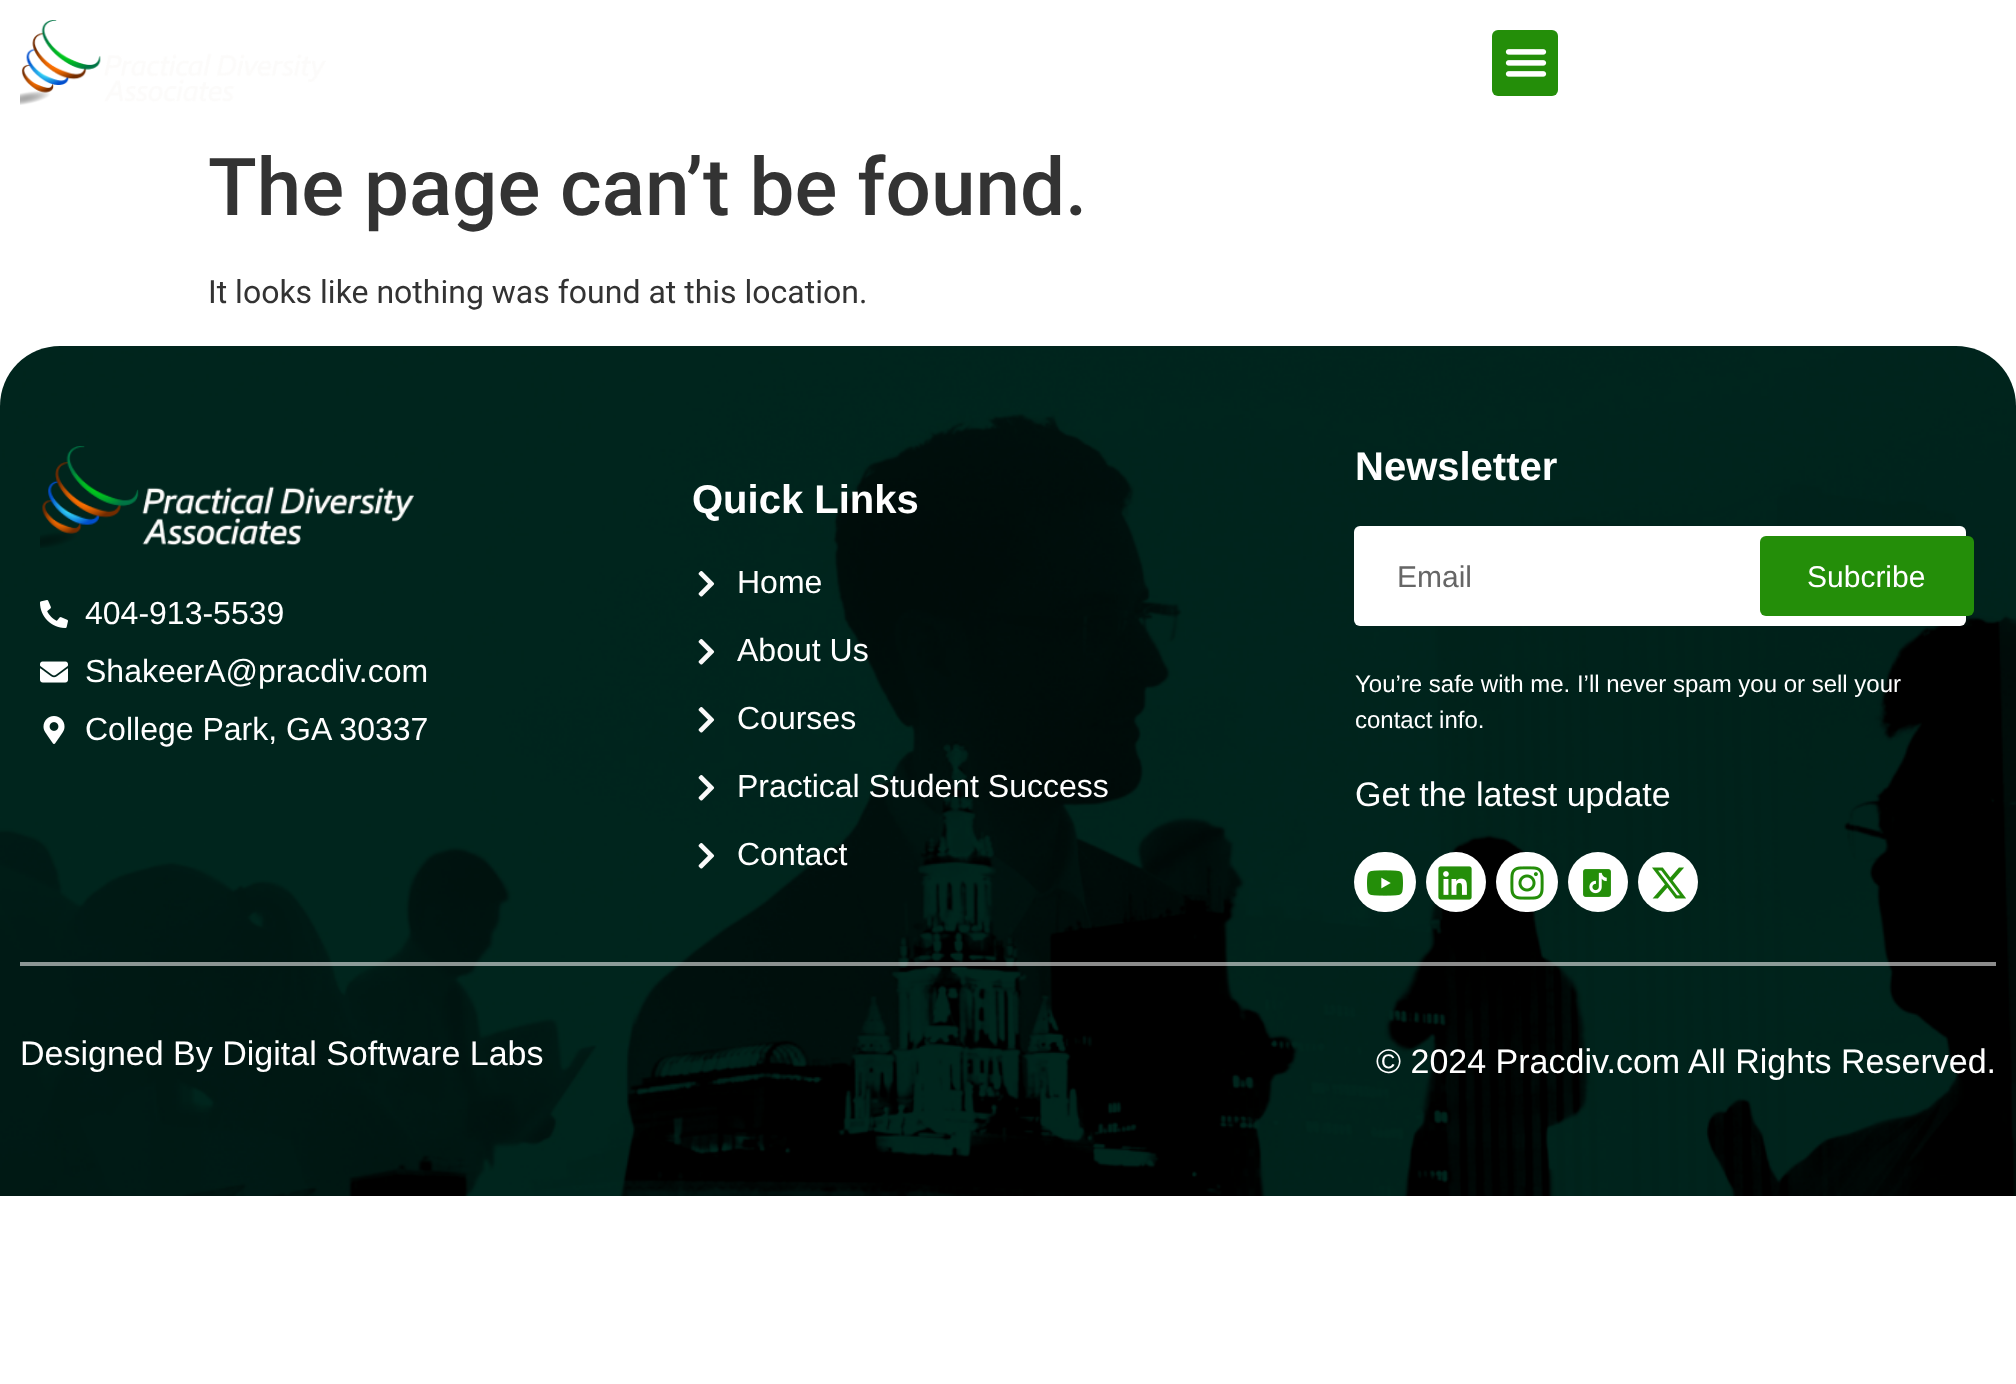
<svg xmlns="http://www.w3.org/2000/svg" width="2016" height="1384">
<rect width="100%" height="100%" fill="#fff"/>
<image x="20" y="20" width="306" height="85" href="media/1.png"/>
<rect x="1492" y="30" width="66" height="66" rx="6" fill="#248e09"/>
<image x="1505" y="49" width="42" height="28" href="media/2.png"/>
<text x="208" y="215" style="font-family:Roboto;font-size:80px;font-weight:500;fill:#333">The page can’t be found.</text>
<text x="208" y="303" style="font-family:Roboto;font-size:32px;fill:#333">It looks like nothing was found at this location.</text>
<image x="0" y="346" width="2016" height="850" href="media/3.png"/>
<image x="40" y="446" width="374" height="102" href="media/4.png"/>
<image x="40" y="600" width="28" height="28" href="media/5.png"/>
<text x="85" y="624" style="font-family:Liberation Sans;font-size:32px;fill:#fff">404-913-5539</text>
<image x="40" y="661" width="28" height="22" href="media/6.png"/>
<text x="85" y="682" style="font-family:Liberation Sans;font-size:32px;fill:#fff">ShakeerA@pracdiv.com</text>
<image x="43" y="716" width="22" height="28" href="media/7.png"/>
<text x="85" y="740" style="font-family:Liberation Sans;font-size:32px;fill:#fff">College Park, GA 30337</text>
<text x="692" y="513" style="font-family:Liberation Sans;font-size:40px;font-weight:bold;fill:#fff">Quick Links</text>
<image x="698" y="571" width="17" height="26" href="media/8.png"/>
<text x="737" y="593" style="font-family:Liberation Sans;font-size:32px;fill:#fff">Home</text>
<image x="698" y="639" width="17" height="26" href="media/9.png"/>
<text x="737" y="661" style="font-family:Liberation Sans;font-size:32px;fill:#fff">About Us</text>
<image x="698" y="707" width="17" height="26" href="media/10.png"/>
<text x="737" y="729" style="font-family:Liberation Sans;font-size:32px;fill:#fff">Courses</text>
<image x="698" y="775" width="17" height="26" href="media/11.png"/>
<text x="737" y="797" style="font-family:Liberation Sans;font-size:32px;fill:#fff">Practical Student Success</text>
<image x="698" y="843" width="17" height="26" href="media/12.png"/>
<text x="737" y="865" style="font-family:Liberation Sans;font-size:32px;fill:#fff">Contact</text>
<text x="1355" y="480" style="font-family:Liberation Sans;font-size:40px;font-weight:bold;fill:#fff">Newsletter</text>
<rect x="1354" y="526" width="612" height="100" rx="6" fill="#fff"/>
<text x="1397" y="587" style="font-family:Liberation Sans;font-size:30px;fill:#666">Email</text>
<rect x="1760" y="536" width="214" height="80" rx="6" fill="#248e09"/>
<text x="1807" y="587" style="font-family:Liberation Sans;font-size:30px;fill:#fff">Subcribe</text>
<text x="1355" y="692" style="font-family:Liberation Sans;font-size:24px;fill:#fff">You’re safe with me. I’ll never spam you or sell your</text>
<text x="1355" y="728" style="font-family:Liberation Sans;font-size:24px;fill:#fff">contact info.</text>
<text x="1355" y="806" style="font-family:Liberation Sans;font-size:34px;fill:#fff">Get the latest update</text>
<rect x="1354" y="852" width="62" height="60" rx="30" fill="#fff"/>
<image x="1367" y="870" width="36" height="26" href="media/13.png"/>
<circle cx="1456" cy="882" r="30" fill="#fff"/>
<image x="1438" y="866" width="34" height="34" href="media/14.png"/>
<rect x="1496" y="852" width="62" height="60" rx="30" fill="#fff"/>
<image x="1510" y="866" width="34" height="34" href="media/15.png"/>
<circle cx="1598" cy="882" r="30" fill="#fff"/>
<image x="1583" y="869" width="28" height="28" href="media/16.png"/>
<circle cx="1668" cy="882" r="30" fill="#fff"/>
<image x="1652" y="867" width="34" height="32" href="media/17.png"/>
<rect x="20" y="962" width="1976" height="4" fill="#ffffff8c"/>
<text x="20" y="1065" style="font-family:Liberation Sans;font-size:34px;fill:#fff">Designed By Digital Software Labs</text>
<text x="1376" y="1073" style="font-family:Liberation Sans;font-size:34px;fill:#fff">© 2024 Pracdiv.com</text>
<text x="1688" y="1073" style="font-family:Liberation Sans;font-size:34px;fill:#fff">All Rights Reserved.</text>
</svg>
